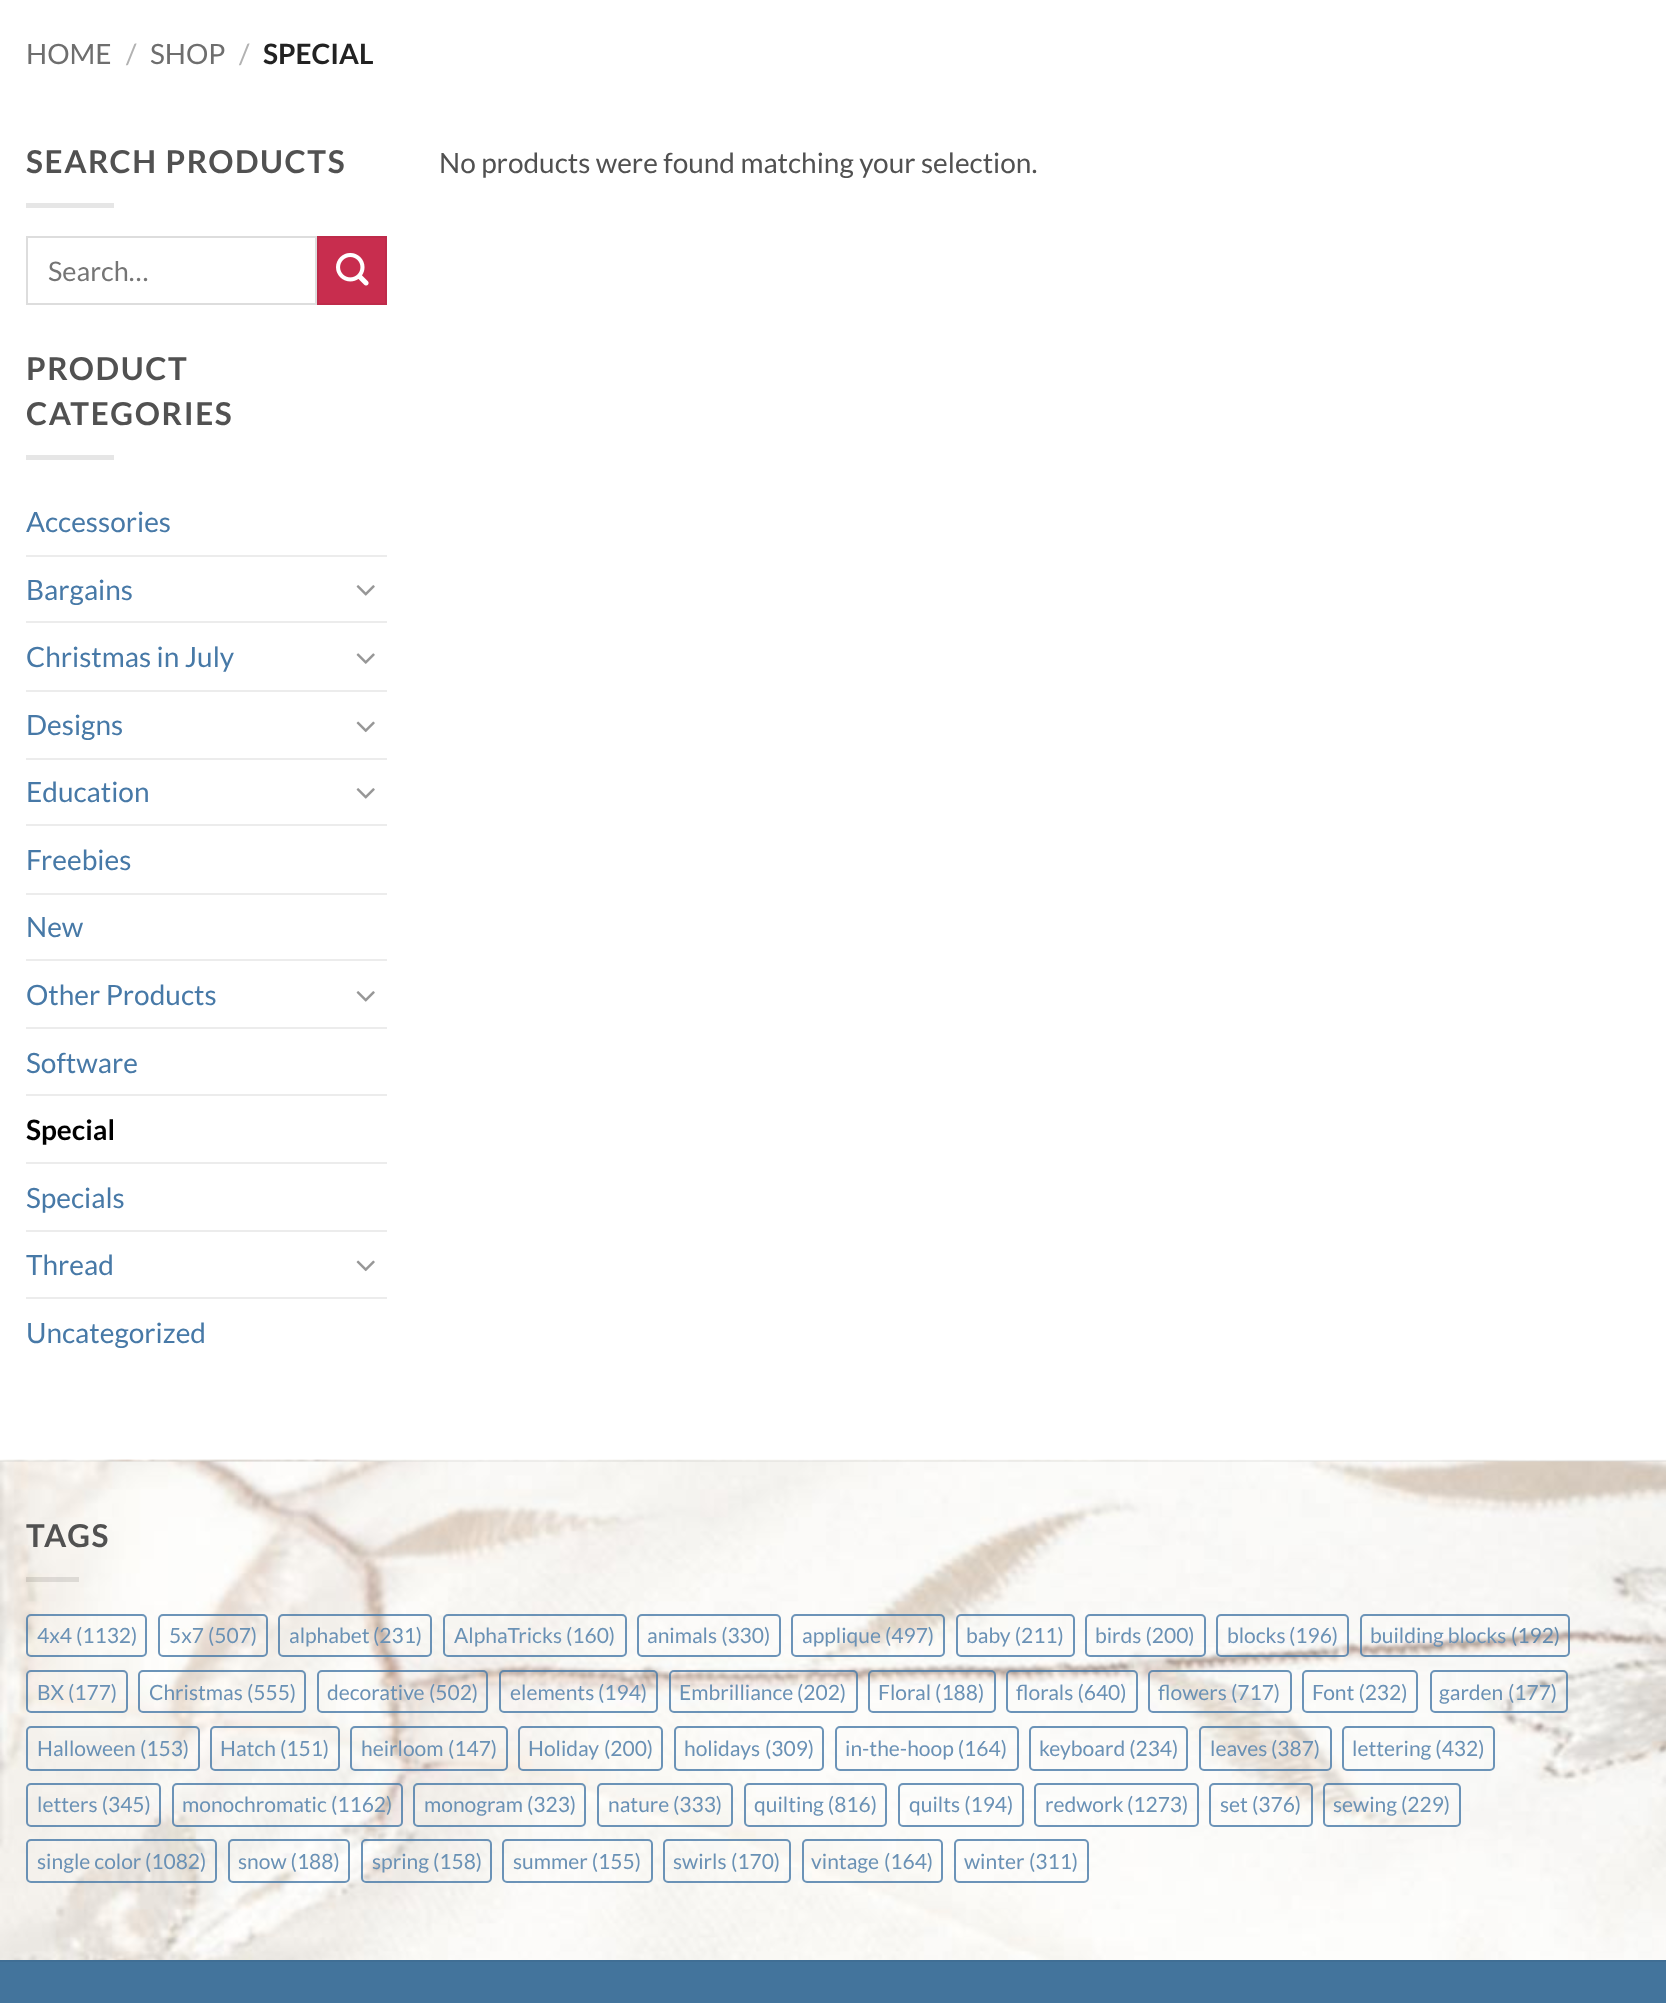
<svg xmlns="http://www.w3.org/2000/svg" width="1666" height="2003">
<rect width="100%" height="100%" fill="#fff"/>
<text x="26" y="64" style="font-family:Lato;font-size:28px;fill:#6e6e6e">HOME</text>
<text x="126" y="64" style="font-family:Lato;font-size:28px;fill:#b2b2b2">/</text>
<text x="150" y="64" style="font-family:Lato;font-size:28px;fill:#6e6e6e">SHOP</text>
<text x="239" y="64" style="font-family:Lato;font-size:28px;fill:#b2b2b2">/</text>
<text x="263" y="64" style="font-family:Lato;font-size:28px;font-weight:bold;fill:#222">SPECIAL</text>
<text x="26" y="173" style="font-family:Lato;font-size:31.5px;font-weight:bold;letter-spacing:1.6px;fill:#515151">SEARCH PRODUCTS</text>
<rect x="26" y="203" width="88" height="5" fill="#e6e6e6"/>
<rect x="27" y="237" width="289" height="67" fill="none" stroke="#ddd" stroke-width="2"/>
<text x="48" y="281" style="font-family:Lato;font-size:27px;fill:#757575">Search…</text>
<rect x="318" y="237" width="68" height="67" fill="#c82d4e" stroke="#be2b4a" stroke-width="2"/>
<image x="336" y="252" width="33" height="34" href="media/1.png"/>
<text x="26" y="380" style="font-family:Lato;font-size:31.5px;font-weight:bold;letter-spacing:1.6px;fill:#515151">PRODUCT</text>
<text x="26" y="425" style="font-family:Lato;font-size:31.5px;font-weight:bold;letter-spacing:1.6px;fill:#515151">CATEGORIES</text>
<rect x="26" y="455" width="88" height="5" fill="#e6e6e6"/>
<text x="26" y="532" style="font-family:Lato;font-size:28px;fill:#4779a7">Accessories</text>
<rect x="26" y="555" width="361" height="2" fill="#ececec"/>
<text x="26" y="600" style="font-family:Lato;font-size:28px;fill:#4779a7">Bargains</text>
<image x="356" y="585" width="19" height="11" href="media/2.png"/>
<rect x="26" y="621" width="361" height="2" fill="#ececec"/>
<text x="26" y="667" style="font-family:Lato;font-size:28px;fill:#4779a7">Christmas in July</text>
<image x="356" y="653" width="19" height="11" href="media/3.png"/>
<rect x="26" y="690" width="361" height="2" fill="#ececec"/>
<text x="26" y="735" style="font-family:Lato;font-size:28px;fill:#4779a7">Designs</text>
<image x="356" y="721" width="19" height="12" href="media/4.png"/>
<rect x="26" y="758" width="361" height="2" fill="#ececec"/>
<text x="26" y="802" style="font-family:Lato;font-size:28px;fill:#4779a7">Education</text>
<image x="356" y="788" width="19" height="11" href="media/2.png"/>
<rect x="26" y="824" width="361" height="2" fill="#ececec"/>
<text x="26" y="870" style="font-family:Lato;font-size:28px;fill:#4779a7">Freebies</text>
<rect x="26" y="893" width="361" height="2" fill="#ececec"/>
<text x="26" y="937" style="font-family:Lato;font-size:28px;fill:#4779a7">New</text>
<rect x="26" y="959" width="361" height="2" fill="#ececec"/>
<text x="26" y="1005" style="font-family:Lato;font-size:28px;fill:#4779a7">Other Products</text>
<image x="356" y="991" width="19" height="11" href="media/2.png"/>
<rect x="26" y="1027" width="361" height="2" fill="#ececec"/>
<text x="26" y="1073" style="font-family:Lato;font-size:28px;fill:#4779a7">Software</text>
<rect x="26" y="1094" width="361" height="2" fill="#ececec"/>
<text x="26" y="1140" style="font-family:Lato;font-size:28px;font-weight:bold;fill:#000">Special</text>
<rect x="26" y="1162" width="361" height="2" fill="#ececec"/>
<text x="26" y="1208" style="font-family:Lato;font-size:28px;fill:#4779a7">Specials</text>
<rect x="26" y="1230" width="361" height="2" fill="#ececec"/>
<text x="26" y="1275" style="font-family:Lato;font-size:28px;fill:#4779a7">Thread</text>
<image x="356" y="1260" width="19" height="12" href="media/4.png"/>
<rect x="26" y="1297" width="361" height="2" fill="#ececec"/>
<text x="26" y="1343" style="font-family:Lato;font-size:28px;fill:#4779a7">Uncategorized</text>
<text x="439" y="173" style="font-family:Lato;font-size:28px;fill:#515151">No products were found matching your selection.</text>
<image x="0" y="1459" width="1666" height="501" href="media/5.png"/>
<rect y="1460" width="1666" height="2" fill="#0000000d"/>
<text x="26" y="1547" style="font-family:Lato;font-size:31.5px;font-weight:bold;letter-spacing:1.6px;fill:#515151">TAGS</text>
<rect x="26" y="1577" width="53" height="5" fill="#0000001a"/>
<rect x="27" y="1615" width="119" height="41" rx="4" fill="none" stroke="#4779a7cc" stroke-width="2"/>
<text x="37" y="1643" style="font-family:Lato;font-size:21px;fill:#6a91b5">4x4</text>
<text x="76" y="1643" style="font-family:Lato;font-size:21px;fill:#6a91b5">(1132)</text>
<rect x="159" y="1615" width="108" height="41" rx="4" fill="none" stroke="#4779a7cc" stroke-width="2"/>
<text x="169" y="1643" style="font-family:Lato;font-size:21px;fill:#6a91b5">5x7</text>
<text x="208" y="1643" style="font-family:Lato;font-size:21px;fill:#6a91b5">(507)</text>
<rect x="279" y="1615" width="152" height="41" rx="4" fill="none" stroke="#4779a7cc" stroke-width="2"/>
<text x="289" y="1643" style="font-family:Lato;font-size:21px;fill:#6a91b5">alphabet</text>
<text x="373" y="1643" style="font-family:Lato;font-size:21px;fill:#6a91b5">(231)</text>
<rect x="444" y="1615" width="182" height="41" rx="4" fill="none" stroke="#4779a7cc" stroke-width="2"/>
<text x="454" y="1643" style="font-family:Lato;font-size:21px;fill:#6a91b5">AlphaTricks</text>
<text x="566" y="1643" style="font-family:Lato;font-size:21px;fill:#6a91b5">(160)</text>
<rect x="638" y="1615" width="142" height="41" rx="4" fill="none" stroke="#4779a7cc" stroke-width="2"/>
<text x="647" y="1643" style="font-family:Lato;font-size:21px;fill:#6a91b5">animals (330)</text>
<rect x="792" y="1615" width="152" height="41" rx="4" fill="none" stroke="#4779a7cc" stroke-width="2"/>
<text x="802" y="1643" style="font-family:Lato;font-size:21px;fill:#6a91b5">applique</text>
<text x="885" y="1643" style="font-family:Lato;font-size:21px;fill:#6a91b5">(497)</text>
<rect x="957" y="1615" width="117" height="41" rx="4" fill="none" stroke="#4779a7cc" stroke-width="2"/>
<text x="966" y="1643" style="font-family:Lato;font-size:21px;fill:#6a91b5">baby (211)</text>
<rect x="1086" y="1615" width="119" height="41" rx="4" fill="none" stroke="#4779a7cc" stroke-width="2"/>
<text x="1095" y="1643" style="font-family:Lato;font-size:21px;fill:#6a91b5">birds (200)</text>
<rect x="1217" y="1615" width="131" height="41" rx="4" fill="none" stroke="#4779a7cc" stroke-width="2"/>
<text x="1227" y="1643" style="font-family:Lato;font-size:21px;fill:#6a91b5">blocks</text>
<text x="1289" y="1643" style="font-family:Lato;font-size:21px;fill:#6a91b5">(196)</text>
<rect x="1361" y="1615" width="208" height="41" rx="4" fill="none" stroke="#4779a7cc" stroke-width="2"/>
<text x="1370" y="1643" style="font-family:Lato;font-size:21px;fill:#6a91b5">building blocks</text>
<text x="1511" y="1643" style="font-family:Lato;font-size:21px;fill:#658caf">(192)</text>
<rect x="27" y="1671" width="100" height="41" rx="4" fill="none" stroke="#4779a7cc" stroke-width="2"/>
<text x="37" y="1700" style="font-family:Lato;font-size:21px;fill:#6a91b5">BX</text>
<text x="68" y="1700" style="font-family:Lato;font-size:21px;fill:#6a91b5">(177)</text>
<rect x="139" y="1671" width="166" height="41" rx="4" fill="none" stroke="#4779a7cc" stroke-width="2"/>
<text x="149" y="1700" style="font-family:Lato;font-size:21px;fill:#6a91b5">Christmas</text>
<text x="247" y="1700" style="font-family:Lato;font-size:21px;fill:#6a91b5">(555)</text>
<rect x="318" y="1671" width="169" height="41" rx="4" fill="none" stroke="#4779a7cc" stroke-width="2"/>
<text x="327" y="1700" style="font-family:Lato;font-size:21px;fill:#6a91b5">decorative</text>
<text x="429" y="1700" style="font-family:Lato;font-size:21px;fill:#6a91b5">(502)</text>
<rect x="500" y="1671" width="157" height="41" rx="4" fill="none" stroke="#4779a7cc" stroke-width="2"/>
<text x="510" y="1700" style="font-family:Lato;font-size:21px;fill:#6a91b5">elements</text>
<text x="598" y="1700" style="font-family:Lato;font-size:21px;fill:#6a91b5">(194)</text>
<rect x="670" y="1671" width="187" height="41" rx="4" fill="none" stroke="#4779a7cc" stroke-width="2"/>
<text x="679" y="1700" style="font-family:Lato;font-size:21px;fill:#6a91b5">Embrilliance</text>
<text x="797" y="1700" style="font-family:Lato;font-size:21px;fill:#6a91b5">(202)</text>
<rect x="869" y="1671" width="126" height="41" rx="4" fill="none" stroke="#4779a7cc" stroke-width="2"/>
<text x="878" y="1700" style="font-family:Lato;font-size:21px;fill:#6a91b5">Floral (188)</text>
<rect x="1007" y="1671" width="130" height="41" rx="4" fill="none" stroke="#4779a7cc" stroke-width="2"/>
<text x="1016" y="1700" style="font-family:Lato;font-size:21px;fill:#6a91b5">florals (640)</text>
<rect x="1149" y="1671" width="142" height="41" rx="4" fill="none" stroke="#4779a7cc" stroke-width="2"/>
<text x="1158" y="1700" style="font-family:Lato;font-size:21px;fill:#6a91b5">flowers</text>
<text x="1231" y="1700" style="font-family:Lato;font-size:21px;fill:#6a91b5">(717)</text>
<rect x="1303" y="1671" width="114" height="41" rx="4" fill="none" stroke="#4779a7cc" stroke-width="2"/>
<text x="1312" y="1700" style="font-family:Lato;font-size:21px;fill:#6a91b5">Font (232)</text>
<rect x="1431" y="1671" width="136" height="41" rx="4" fill="none" stroke="#4779a7cc" stroke-width="2"/>
<text x="1439" y="1700" style="font-family:Lato;font-size:21px;fill:#6a91b5">garden</text>
<text x="1508" y="1700" style="font-family:Lato;font-size:21px;fill:#6a91b5">(177)</text>
<rect x="27" y="1727" width="172" height="43" rx="4" fill="none" stroke="#4779a7cc" stroke-width="2"/>
<text x="37" y="1756" style="font-family:Lato;font-size:21px;fill:#6a91b5">Halloween</text>
<text x="140" y="1756" style="font-family:Lato;font-size:21px;fill:#6a91b5">(153)</text>
<rect x="211" y="1727" width="128" height="43" rx="4" fill="none" stroke="#4779a7cc" stroke-width="2"/>
<text x="220" y="1756" style="font-family:Lato;font-size:21px;fill:#6a91b5">Hatch</text>
<text x="280" y="1756" style="font-family:Lato;font-size:21px;fill:#6a91b5">(151)</text>
<rect x="351" y="1727" width="156" height="43" rx="4" fill="none" stroke="#4779a7cc" stroke-width="2"/>
<text x="361" y="1756" style="font-family:Lato;font-size:21px;fill:#6a91b5">heirloom</text>
<text x="448" y="1756" style="font-family:Lato;font-size:21px;fill:#6a91b5">(147)</text>
<rect x="519" y="1727" width="143" height="43" rx="4" fill="none" stroke="#4779a7cc" stroke-width="2"/>
<text x="528" y="1756" style="font-family:Lato;font-size:21px;fill:#6a91b5">Holiday</text>
<text x="604" y="1756" style="font-family:Lato;font-size:21px;fill:#6a91b5">(200)</text>
<rect x="675" y="1727" width="148" height="43" rx="4" fill="none" stroke="#4779a7cc" stroke-width="2"/>
<text x="684" y="1756" style="font-family:Lato;font-size:21px;fill:#6a91b5">holidays</text>
<text x="765" y="1756" style="font-family:Lato;font-size:21px;fill:#6a91b5">(309)</text>
<rect x="836" y="1727" width="182" height="43" rx="4" fill="none" stroke="#4779a7cc" stroke-width="2"/>
<text x="845" y="1756" style="font-family:Lato;font-size:21px;fill:#6a91b5">in-the-hoop (164)</text>
<rect x="1030" y="1727" width="157" height="43" rx="4" fill="none" stroke="#4779a7cc" stroke-width="2"/>
<text x="1039" y="1756" style="font-family:Lato;font-size:21px;fill:#6a91b5">keyboard (234)</text>
<rect x="1200" y="1727" width="131" height="43" rx="4" fill="none" stroke="#4779a7cc" stroke-width="2"/>
<text x="1210" y="1756" style="font-family:Lato;font-size:21px;fill:#6a91b5">leaves</text>
<text x="1271" y="1756" style="font-family:Lato;font-size:21px;fill:#6a91b5">(387)</text>
<rect x="1343" y="1727" width="151" height="43" rx="4" fill="none" stroke="#4779a7cc" stroke-width="2"/>
<text x="1352" y="1756" style="font-family:Lato;font-size:21px;fill:#6a91b5">lettering (432)</text>
<rect x="27" y="1784" width="133" height="42" rx="4" fill="none" stroke="#4779a7cc" stroke-width="2"/>
<text x="37" y="1812" style="font-family:Lato;font-size:21px;fill:#6a91b5">letters (345)</text>
<rect x="173" y="1784" width="229" height="42" rx="4" fill="none" stroke="#4779a7cc" stroke-width="2"/>
<text x="182" y="1812" style="font-family:Lato;font-size:21px;fill:#6a91b5">monochromatic</text>
<text x="331" y="1812" style="font-family:Lato;font-size:21px;fill:#6a91b5">(1162)</text>
<rect x="414" y="1784" width="171" height="42" rx="4" fill="none" stroke="#4779a7cc" stroke-width="2"/>
<text x="424" y="1812" style="font-family:Lato;font-size:21px;fill:#6a91b5">monogram</text>
<text x="527" y="1812" style="font-family:Lato;font-size:21px;fill:#6a91b5">(323)</text>
<rect x="598" y="1784" width="134" height="42" rx="4" fill="none" stroke="#4779a7cc" stroke-width="2"/>
<text x="608" y="1812" style="font-family:Lato;font-size:21px;fill:#6a91b5">nature</text>
<text x="673" y="1812" style="font-family:Lato;font-size:21px;fill:#6a91b5">(333)</text>
<rect x="745" y="1784" width="141" height="42" rx="4" fill="none" stroke="#4779a7cc" stroke-width="2"/>
<text x="754" y="1812" style="font-family:Lato;font-size:21px;fill:#6a91b5">quilting (816)</text>
<rect x="899" y="1784" width="124" height="42" rx="4" fill="none" stroke="#4779a7cc" stroke-width="2"/>
<text x="909" y="1812" style="font-family:Lato;font-size:21px;fill:#6a91b5">quilts (194)</text>
<rect x="1035" y="1784" width="163" height="42" rx="4" fill="none" stroke="#4779a7cc" stroke-width="2"/>
<text x="1045" y="1812" style="font-family:Lato;font-size:21px;fill:#6a91b5">redwork</text>
<text x="1127" y="1812" style="font-family:Lato;font-size:21px;fill:#6a91b5">(1273)</text>
<rect x="1210" y="1784" width="102" height="42" rx="4" fill="none" stroke="#4779a7cc" stroke-width="2"/>
<text x="1220" y="1812" style="font-family:Lato;font-size:21px;fill:#6a91b5">set (376)</text>
<rect x="1324" y="1784" width="136" height="42" rx="4" fill="none" stroke="#4779a7cc" stroke-width="2"/>
<text x="1333" y="1812" style="font-family:Lato;font-size:21px;fill:#6a91b5">sewing</text>
<text x="1401" y="1812" style="font-family:Lato;font-size:21px;fill:#6a91b5">(229)</text>
<rect x="27" y="1840" width="189" height="42" rx="4" fill="none" stroke="#4779a7cc" stroke-width="2"/>
<text x="37" y="1869" style="font-family:Lato;font-size:21px;fill:#6a91b5">single color</text>
<text x="145" y="1869" style="font-family:Lato;font-size:21px;fill:#6a91b5">(1082)</text>
<rect x="229" y="1840" width="120" height="42" rx="4" fill="none" stroke="#4779a7cc" stroke-width="2"/>
<text x="238" y="1869" style="font-family:Lato;font-size:21px;fill:#6a91b5">snow (188)</text>
<rect x="362" y="1840" width="129" height="42" rx="4" fill="none" stroke="#4779a7cc" stroke-width="2"/>
<text x="372" y="1869" style="font-family:Lato;font-size:21px;fill:#6a91b5">spring</text>
<text x="433" y="1869" style="font-family:Lato;font-size:21px;fill:#6a91b5">(158)</text>
<rect x="503" y="1840" width="149" height="42" rx="4" fill="none" stroke="#4779a7cc" stroke-width="2"/>
<text x="513" y="1869" style="font-family:Lato;font-size:21px;fill:#6a91b5">summer (155)</text>
<rect x="664" y="1840" width="126" height="42" rx="4" fill="none" stroke="#4779a7cc" stroke-width="2"/>
<text x="673" y="1869" style="font-family:Lato;font-size:21px;fill:#6a91b5">swirls</text>
<text x="731" y="1869" style="font-family:Lato;font-size:21px;fill:#6a91b5">(170)</text>
<rect x="803" y="1840" width="139" height="42" rx="4" fill="none" stroke="#4779a7cc" stroke-width="2"/>
<text x="811" y="1869" style="font-family:Lato;font-size:21px;fill:#6a91b5">vintage</text>
<text x="884" y="1869" style="font-family:Lato;font-size:21px;fill:#6a91b5">(164)</text>
<rect x="955" y="1840" width="133" height="42" rx="4" fill="none" stroke="#4779a7cc" stroke-width="2"/>
<text x="964" y="1869" style="font-family:Lato;font-size:21px;fill:#6a91b5">winter</text>
<text x="1029" y="1869" style="font-family:Lato;font-size:21px;fill:#6a91b5">(311)</text>
<rect y="1962" width="1666" height="41" fill="#43749c"/>
<rect y="1960" width="1666" height="2" fill="#406e94"/>
</svg>
